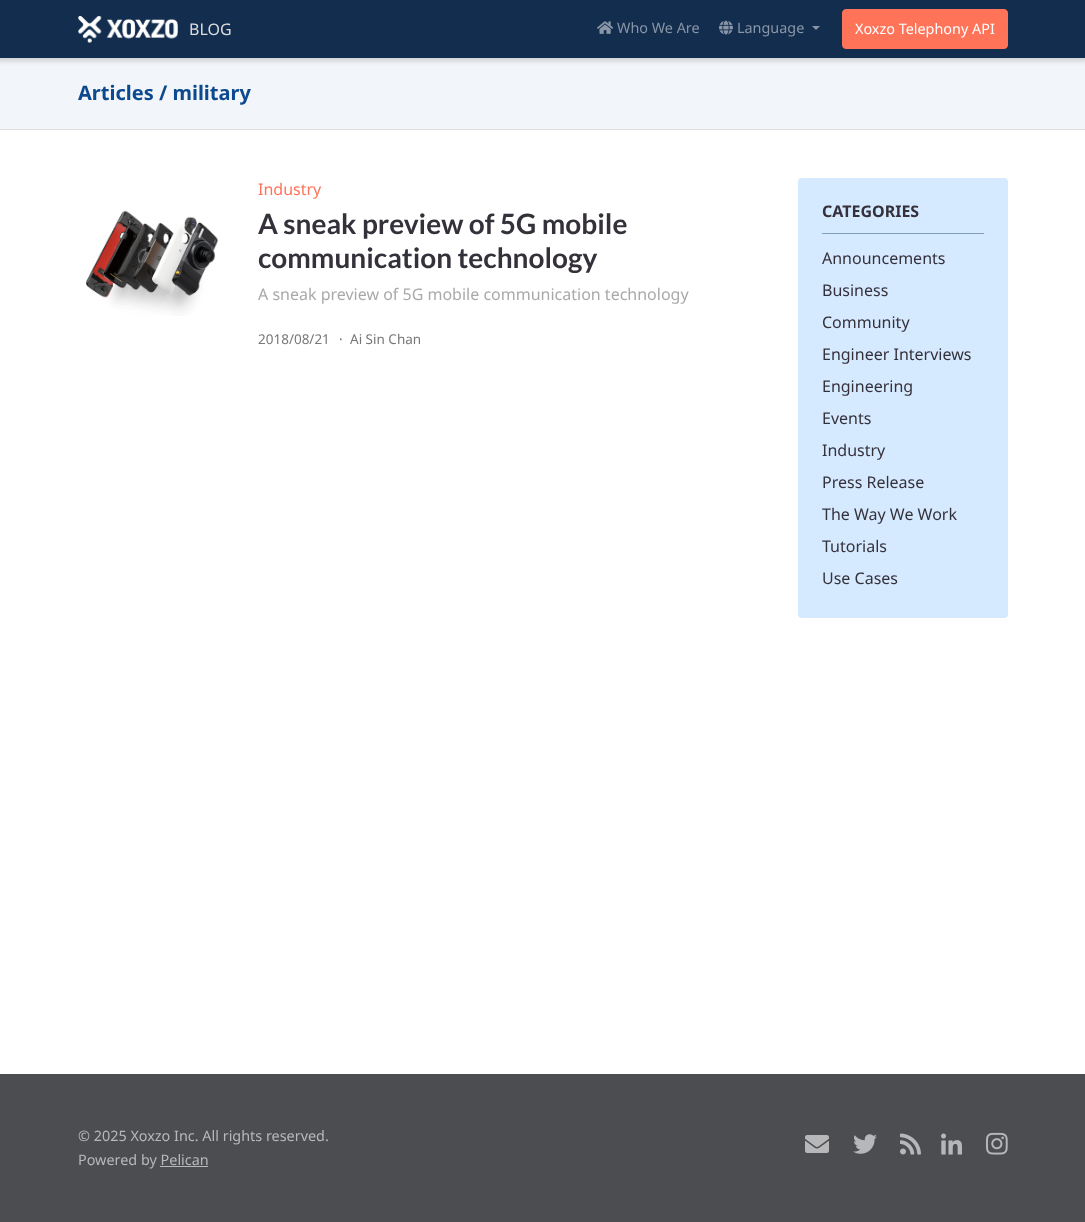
<svg xmlns="http://www.w3.org/2000/svg" width="1085" height="1222">
<rect width="100%" height="100%" fill="#fff"/>
<rect y="58" width="1085" height="71" fill="#f2f5f9"/>
<rect x="-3" y="-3" width="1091" height="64" fill="#00000026" filter="blur(2.5px)"/>
<rect width="1085" height="58" fill="#132d4e"/>
<image x="78" y="16" width="100" height="27" href="media/1.png"/>
<text x="189" y="35" style="font-family:Noto Sans;font-size:16px;fill:#ddd">BLOG</text>
<image x="597" y="21" width="17" height="13" href="media/2.png"/>
<text x="617" y="33" style="font-family:Noto Sans;font-size:14.4px;fill:#8996a7">Who We Are</text>
<image x="719" y="20" width="14" height="15" href="media/3.png"/>
<text x="737" y="33" style="font-family:Noto Sans;font-size:14.4px;fill:#8996a7">Language</text>
<path d="M812 26h8l-4 4z" fill="#8996a7"/>
<rect x="842.5" y="9.5" width="165" height="39" rx="3.5" fill="#ff7359" stroke="#ff7359"/>
<text x="855" y="34" style="font-family:Noto Sans;font-size:14.4px;fill:#fff">Xoxzo Telephony API</text>
<rect y="129" width="1085" height="1" fill="#ddd"/>
<text x="78" y="100" style="font-family:Noto Sans;font-size:20px;font-weight:bold;fill:#0c498e">Articles / military</text>
<image x="85" y="210" width="134" height="106" href="media/4.png"/>
<text x="258" y="195" style="font-family:Noto Sans;font-size:16px;fill:#ff7359">Industry</text>
<text x="258" y="234" style="font-family:Lato;font-size:28px;font-weight:bold;fill:#35313b">A sneak preview of 5G mobile</text>
<text x="258" y="268" style="font-family:Lato;font-size:28px;font-weight:bold;fill:#35313b">communication technology</text>
<text x="258" y="300" style="font-family:Noto Sans;font-size:16px;fill:#a9a9a9">A sneak preview of 5G mobile communication technology</text>
<text x="258" y="344" style="font-family:Noto Sans;font-size:13.5px;fill:#777">2018/08/21</text>
<text x="339" y="344" style="font-family:Noto Sans;font-size:13.5px;fill:#777">·</text>
<text x="350" y="344" style="font-family:Noto Sans;font-size:13.5px;fill:#777">Ai Sin Chan</text>
<rect x="798" y="178" width="210" height="440" rx="4" fill="#d6eaff"/>
<rect x="822" y="233" width="162" height="1" fill="#809fc1"/>
<text x="822" y="217" style="font-family:Noto Sans;font-size:16px;font-weight:bold;fill:#35313b">CATEGORIES</text>
<text x="822" y="264" style="font-family:Noto Sans;font-size:16px;fill:#35313b">Announcements</text>
<text x="822" y="296" style="font-family:Noto Sans;font-size:16px;fill:#35313b">Business</text>
<text x="822" y="328" style="font-family:Noto Sans;font-size:16px;fill:#35313b">Community</text>
<text x="822" y="360" style="font-family:Noto Sans;font-size:16px;fill:#35313b">Engineer Interviews</text>
<text x="822" y="392" style="font-family:Noto Sans;font-size:16px;fill:#35313b">Engineering</text>
<text x="822" y="424" style="font-family:Noto Sans;font-size:16px;fill:#35313b">Events</text>
<text x="822" y="456" style="font-family:Noto Sans;font-size:16px;fill:#35313b">Industry</text>
<text x="822" y="488" style="font-family:Noto Sans;font-size:16px;fill:#35313b">Press Release</text>
<text x="822" y="520" style="font-family:Noto Sans;font-size:16px;fill:#35313b">The Way We Work</text>
<text x="822" y="552" style="font-family:Noto Sans;font-size:16px;fill:#35313b">Tutorials</text>
<text x="822" y="584" style="font-family:Noto Sans;font-size:16px;fill:#35313b">Use Cases</text>
<rect y="1074" width="1085" height="148" fill="#4b4d51"/>
<text x="78" y="1141" style="font-family:Noto Sans;font-size:14.4px;fill:#b7b8b9">© 2025 Xoxzo Inc. All rights reserved.</text>
<text x="78" y="1165" style="font-family:Noto Sans;font-size:14.4px;fill:#b7b8b9">Powered by Pelican</text>
<rect x="160" y="1166" width="48" height="1" fill="#b7b8b9"/>
<image x="805" y="1135" width="24" height="18" href="media/5.png"/>
<image x="853" y="1134" width="24" height="20" href="media/6.png"/>
<image x="900" y="1133" width="21" height="22" href="media/7.png"/>
<image x="941" y="1133" width="21" height="22" href="media/8.png"/>
<image x="986" y="1132" width="22" height="23" href="media/9.png"/>
</svg>
